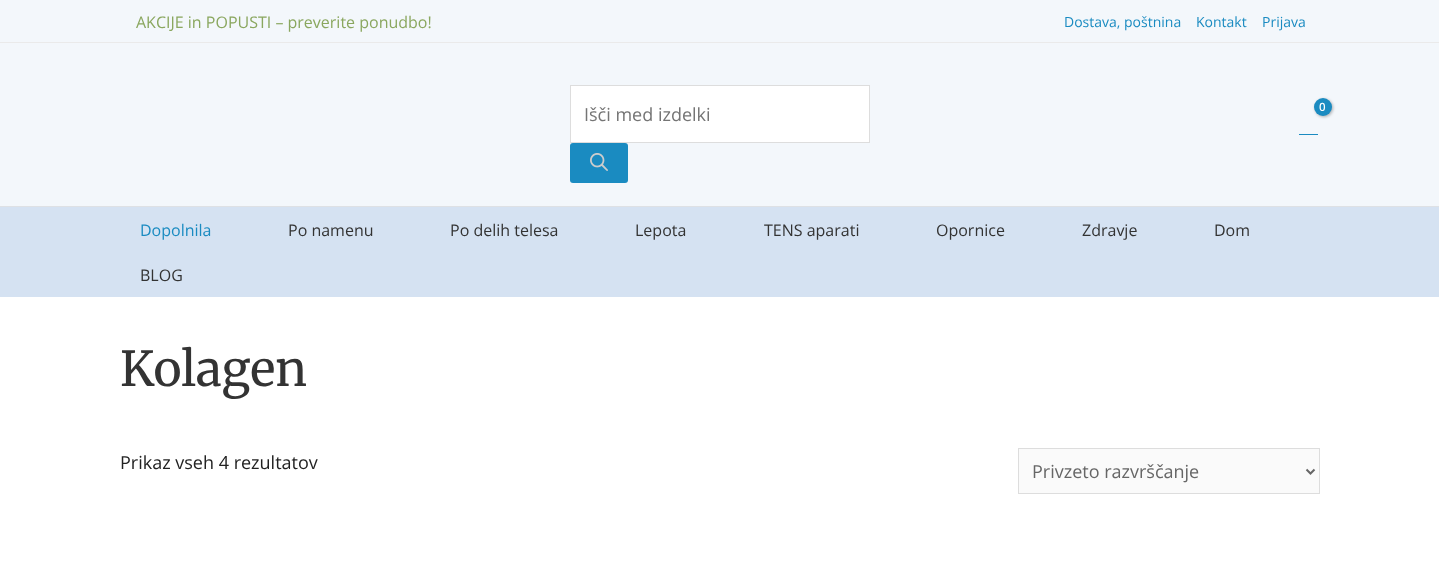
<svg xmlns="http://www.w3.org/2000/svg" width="1439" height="582">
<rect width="100%" height="100%" fill="#fff"/>
<rect width="1439" height="42" fill="#f3f7fb"/>
<rect y="42" width="1439" height="1" fill="#eaeaea"/>
<text x="136" y="28" style="font-family:Open Sans;font-size:16px;fill:#8aa75f">AKCIJE in POPUSTI – preverite ponudbo!</text>
<text x="1064" y="27" style="font-family:Open Sans;font-size:14px;fill:#1a8bc1">Dostava, poštnina</text>
<text x="1196" y="27" style="font-family:Open Sans;font-size:14px;fill:#1a8bc1">Kontakt</text>
<text x="1262" y="27" style="font-family:Open Sans;font-size:14px;fill:#1a8bc1">Prijava</text>
<rect y="43" width="1439" height="163" fill="#f3f7fb"/>
<rect y="206" width="1439" height="1" fill="#dee1e5"/>
<rect x="570.5" y="85.5" width="299" height="57" fill="#fff" stroke="#ddd"/>
<text x="584" y="121" style="font-family:Open Sans;font-size:18px;fill:#757575">Išči med izdelki</text>
<rect x="570" y="143" width="58" height="40" rx="3" fill="#1a8bc1"/>
<image x="590" y="153" width="18" height="18" href="media/1.png"/>
<rect x="1315" y="99" width="18" height="18" rx="9" fill="#0000004d" filter="blur(1.5px)"/>
<circle cx="1323" cy="107" r="9" fill="#1a8bc1"/>
<text x="1319" y="111" style="font-family:Open Sans;font-size:11px;font-weight:bold;fill:#fff">0</text>
<rect x="1299" y="134" width="19" height="1" fill="#1a8bc1"/>
<rect y="207" width="1439" height="90" fill="#d5e2f2"/>
<text x="140" y="236" style="font-family:Open Sans;font-size:16px;fill:#1a8bc1">Dopolnila</text>
<text x="288" y="236" style="font-family:Open Sans;font-size:16px;fill:#333">Po namenu</text>
<text x="450" y="236" style="font-family:Open Sans;font-size:16px;fill:#333">Po delih telesa</text>
<text x="635" y="236" style="font-family:Open Sans;font-size:16px;fill:#333">Lepota</text>
<text x="764" y="236" style="font-family:Open Sans;font-size:16px;fill:#333">TENS aparati</text>
<text x="936" y="236" style="font-family:Open Sans;font-size:16px;fill:#333">Opornice</text>
<text x="1082" y="236" style="font-family:Open Sans;font-size:16px;fill:#333">Zdravje</text>
<text x="1214" y="236" style="font-family:Open Sans;font-size:16px;fill:#333">Dom</text>
<text x="140" y="281" style="font-family:Open Sans;font-size:16px;fill:#333">BLOG</text>
<text x="120" y="386" style="font-family:Merriweather;font-size:48px;fill:#333">Kolagen</text>
<text x="120" y="469" style="font-family:Open Sans;font-size:18px;fill:#222">Prikaz vseh 4 rezultatov</text>
<rect x="1018.5" y="448.5" width="301" height="45" fill="#fafafa" stroke="#ddd"/>
<path d="M1306.5 469.5l4 4l4-4" fill="none" stroke="#666" stroke-width="2"/>
<text x="1032" y="478" style="font-family:Open Sans;font-size:18px;fill:#666">Privzeto razvrščanje</text>
</svg>
